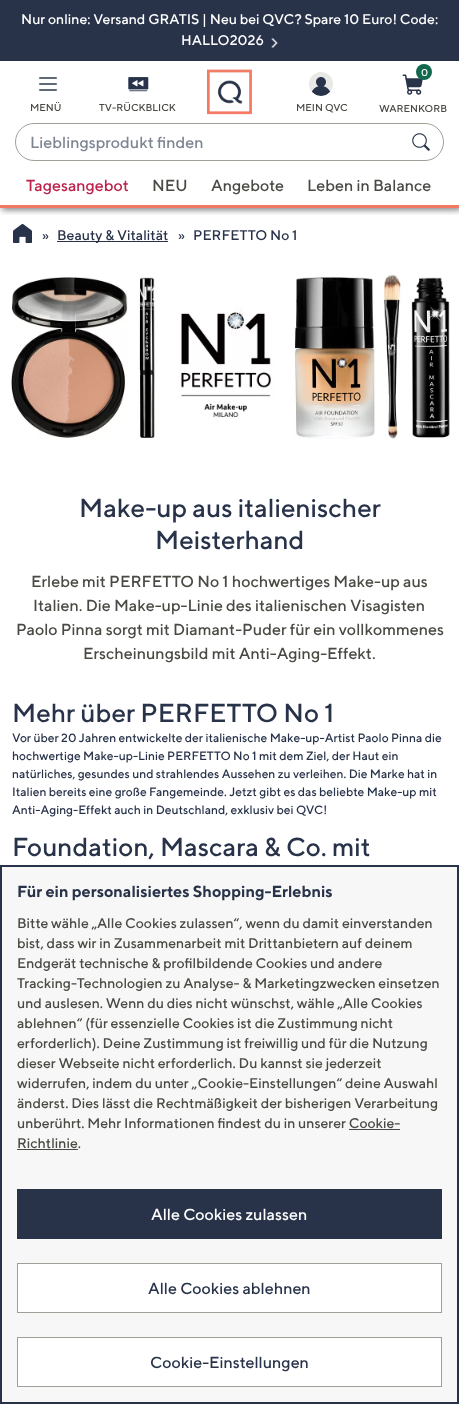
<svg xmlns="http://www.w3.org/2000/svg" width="459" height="1404">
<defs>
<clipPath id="clip1"><rect x="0" y="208" width="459" height="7"/></clipPath>
</defs>
<rect width="100%" height="100%" fill="#28334a"/>
<text x="21" y="24" style="font-family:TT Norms;font-size:14px;font-weight:500;fill:#fff">Nur online: Versand GRATIS | Neu bei QVC? Spare 10 Euro! Code:</text>
<text x="181" y="45" style="font-family:TT Norms;font-size:14px;font-weight:500;fill:#fff">HALLO2026</text>
<image x="271" y="38" width="7" height="10" href="media/1.png"/>
<rect y="165" width="459" height="40" fill="#fff"/>
<rect y="208" width="459" height="657" fill="#fff"/>
<g clip-path="url(#clip1)">
<rect x="2" y="167" width="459" height="43" fill="#00000080" filter="blur(3px)"/>
</g>
<rect y="61" width="459" height="104" fill="#fff"/>
<image x="39" y="77" width="18" height="14" href="media/2.png"/>
<text x="30" y="111" style="font-family:TT Norms;font-size:10px;font-weight:500;fill:#4a4a44">MENÜ</text>
<image x="128" y="77" width="21" height="15" href="media/3.png"/>
<text x="99" y="111" style="font-family:TT Norms;font-size:10px;font-weight:500;fill:#4a4a44">TV-RÜCKBLICK</text>
<image x="207" y="69" width="45" height="46" href="media/4.png"/>
<circle cx="321" cy="84" r="12" fill="#e8e8e6"/>
<image x="312" y="77" width="18" height="19" href="media/5.png"/>
<text x="296" y="111" style="font-family:TT Norms;font-size:10px;font-weight:500;fill:#4a4a44">MEIN QVC</text>
<image x="402" y="74" width="21" height="21" href="media/6.png"/>
<circle cx="424" cy="72" r="8" fill="#12684e"/>
<text x="421" y="76" style="font-family:TT Norms;font-size:10px;font-weight:500;fill:#fff">0</text>
<text x="379" y="112" style="font-family:TT Norms;font-size:10px;font-weight:500;fill:#4a4a44">WARENKORB</text>
<rect x="15.5" y="123.5" width="428" height="37" rx="18.5" fill="none" stroke="#a0a098"/>
<text x="30" y="148" style="font-family:TT Norms;font-size:16px;font-weight:500;fill:#7e8592">Lieblingsprodukt finden</text>
<image x="412" y="133" width="18" height="18" href="media/7.png"/>
<rect y="205" width="459" height="3" fill="#f47963"/>
<text x="26" y="191" style="font-family:TT Norms;font-size:16px;font-weight:500;fill:#bc204b">Tagesangebot</text>
<text x="152" y="191" style="font-family:TT Norms;font-size:16px;font-weight:500;fill:#4a4a44">NEU</text>
<text x="211" y="191" style="font-family:TT Norms;font-size:16px;font-weight:500;fill:#4a4a44">Angebote</text>
<text x="307" y="191" style="font-family:TT Norms;font-size:16px;font-weight:500;fill:#4a4a44">Leben in Balance</text>
<image x="13" y="224" width="19" height="19" href="media/8.png"/>
<text x="42" y="240" style="font-family:TT Norms;font-size:14px;font-weight:500;fill:#28334a">»</text>
<rect x="57" y="241" width="111" height="1" fill="#28334a"/>
<text x="57" y="240" style="font-family:TT Norms;font-size:14px;font-weight:500;fill:#28334a">Beauty &amp; Vitalität</text>
<text x="178" y="240" style="font-family:TT Norms;font-size:14px;font-weight:500;fill:#28334a">»</text>
<text x="193" y="240" style="font-family:TT Norms;font-size:14px;font-weight:500;fill:#28334a">PERFETTO No 1</text>
<image x="11" y="274" width="439" height="165" href="media/9.png"/>
<text x="79" y="517" style="font-family:TT Norms;font-size:26px;font-weight:500;fill:#28334a">Make-up aus italienischer</text>
<text x="155" y="549" style="font-family:TT Norms;font-size:26px;font-weight:500;fill:#28334a">Meisterhand</text>
<text x="31" y="587" style="font-family:TT Norms;font-size:16px;font-weight:500;fill:#4a4a44">Erlebe mit PERFETTO No 1 hochwertiges Make-up aus</text>
<text x="33" y="611" style="font-family:TT Norms;font-size:16px;font-weight:500;fill:#4a4a44">Italien. Die Make-up-Linie des italienischen Visagisten</text>
<text x="16" y="635" style="font-family:TT Norms;font-size:16px;font-weight:500;fill:#4a4a44">Paolo Pinna sorgt mit Diamant-Puder für ein vollkommenes</text>
<text x="83" y="659" style="font-family:TT Norms;font-size:16px;font-weight:500;fill:#4a4a44">Erscheinungsbild mit Anti-Aging-Effekt.</text>
<text x="12" y="722" style="font-family:TT Norms;font-size:26px;font-weight:500;fill:#28334a">Mehr über PERFETTO No 1</text>
<text x="12" y="742" style="font-family:TT Norms;font-size:12px;font-weight:500;fill:#28334a">Vor über 20 Jahren entwickelte der italienische Make-up-Artist Paolo Pinna die</text>
<text x="12" y="760" style="font-family:TT Norms;font-size:12px;font-weight:500;fill:#28334a">hochwertige Make-up-Linie PERFETTO No 1 mit dem Ziel, der Haut ein</text>
<text x="12" y="778" style="font-family:TT Norms;font-size:12px;font-weight:500;fill:#28334a">natürliches, gesundes und strahlendes Aussehen zu verleihen. Die Marke hat in</text>
<text x="12" y="796" style="font-family:TT Norms;font-size:12px;font-weight:500;fill:#28334a">Italien bereits eine große Fangemeinde. Jetzt gibt es das beliebte Make-up mit</text>
<text x="12" y="814" style="font-family:TT Norms;font-size:12px;font-weight:500;fill:#28334a">Anti-Aging-Effekt auch in Deutschland, exklusiv bei QVC!</text>
<text x="12" y="856" style="font-family:TT Norms;font-size:26px;font-weight:500;fill:#28334a">Foundation, Mascara &amp; Co. mit</text>
<rect x="2" y="867" width="455" height="535" fill="#f7f7f7"/>
<text x="17" y="897" style="font-family:TT Norms;font-size:16px;font-weight:bold;fill:#28334a">Für ein personalisiertes Shopping-Erlebnis</text>
<text x="17" y="928" style="font-family:TT Norms;font-size:14px;font-weight:500;fill:#4a4a44">Bitte wähle „Alle Cookies zulassen“, wenn du damit einverstanden</text>
<text x="17" y="948" style="font-family:TT Norms;font-size:14px;font-weight:500;fill:#4a4a44">bist, dass wir in Zusammenarbeit mit Drittanbietern auf deinem</text>
<text x="17" y="968" style="font-family:TT Norms;font-size:14px;font-weight:500;fill:#4a4a44">Endgerät technische &amp; profilbildende Cookies und andere</text>
<text x="17" y="988" style="font-family:TT Norms;font-size:14px;font-weight:500;fill:#4a4a44">Tracking-Technologien zu Analyse- &amp; Marketingzwecken einsetzen</text>
<text x="17" y="1008" style="font-family:TT Norms;font-size:14px;font-weight:500;fill:#4a4a44">und auslesen. Wenn du dies nicht wünschst, wähle „Alle Cookies</text>
<text x="17" y="1028" style="font-family:TT Norms;font-size:14px;font-weight:500;fill:#4a4a44">ablehnen“ (für essenzielle Cookies ist die Zustimmung nicht</text>
<text x="17" y="1048" style="font-family:TT Norms;font-size:14px;font-weight:500;fill:#4a4a44">erforderlich). Deine Zustimmung ist freiwillig und für die Nutzung</text>
<text x="17" y="1068" style="font-family:TT Norms;font-size:14px;font-weight:500;fill:#4a4a44">dieser Webseite nicht erforderlich. Du kannst sie jederzeit</text>
<text x="17" y="1088" style="font-family:TT Norms;font-size:14px;font-weight:500;fill:#4a4a44">widerrufen, indem du unter „Cookie-Einstellungen“ deine Auswahl</text>
<text x="17" y="1108" style="font-family:TT Norms;font-size:14px;font-weight:500;fill:#4a4a44">änderst. Dies lässt die Rechtmäßigkeit der bisherigen Verarbeitung</text>
<text x="17" y="1128" style="font-family:TT Norms;font-size:14px;font-weight:500;fill:#4a4a44">unberührt. Mehr Informationen findest du in unserer Cookie-</text>
<text x="17" y="1148" style="font-family:TT Norms;font-size:14px;font-weight:500;fill:#4a4a44">Richtlinie.</text>
<rect x="349" y="1129" width="51" height="1" fill="#4a4a44"/>
<rect x="17" y="1149" width="61" height="1" fill="#4a4a44"/>
<rect x="17" y="1189" width="425" height="50" fill="#28334a"/>
<text x="151" y="1220" style="font-family:TT Norms;font-size:16px;font-weight:500;fill:#fff">Alle Cookies zulassen</text>
<rect x="17.5" y="1263.5" width="424" height="49" fill="#fff" stroke="#a0a098"/>
<text x="148" y="1294" style="font-family:TT Norms;font-size:16px;font-weight:500;fill:#28334a">Alle Cookies ablehnen</text>
<rect x="17.5" y="1337.5" width="424" height="49" fill="#fff" stroke="#a0a098"/>
<text x="150" y="1368" style="font-family:TT Norms;font-size:16px;font-weight:500;fill:#28334a">Cookie-Einstellungen</text>
</svg>
